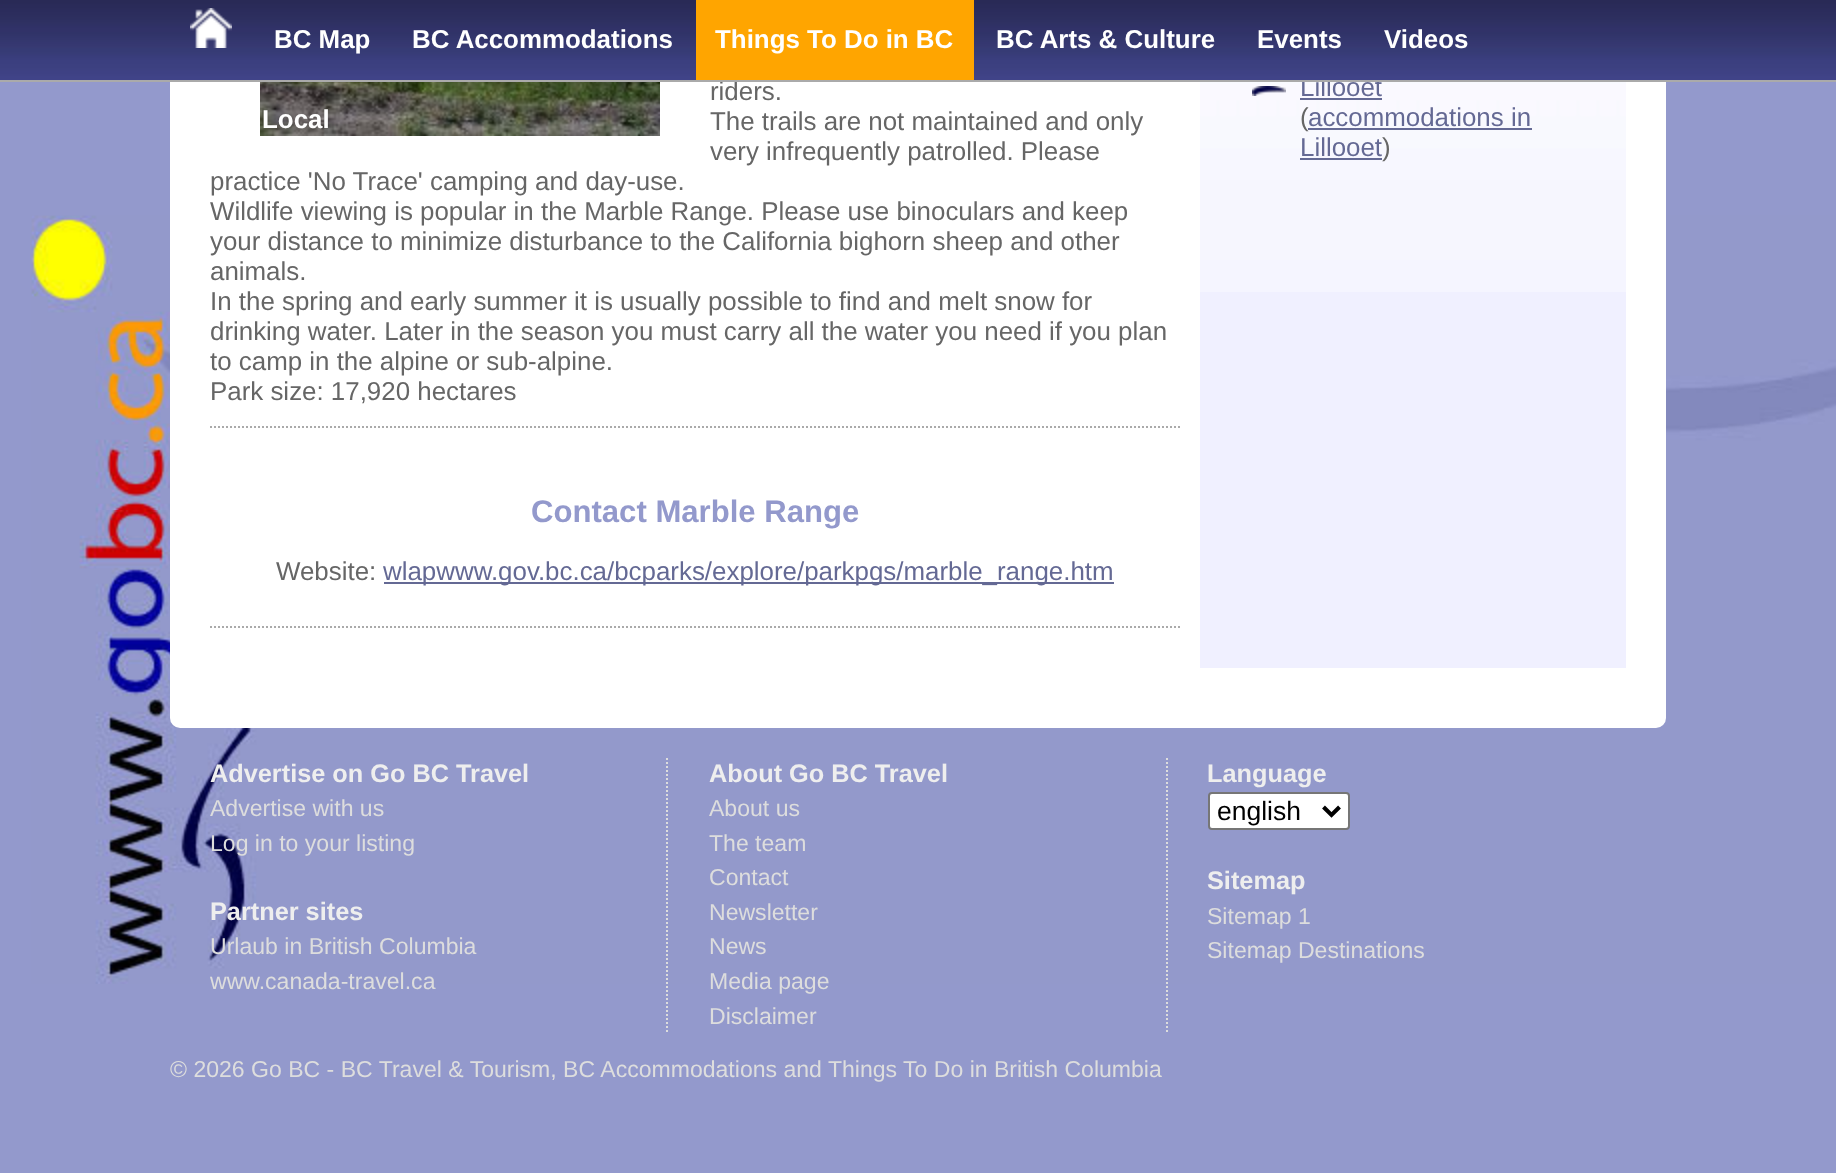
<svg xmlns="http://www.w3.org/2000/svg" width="1836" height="1173">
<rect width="100%" height="100%" fill="#9399cc"/>
<image x="31" y="215" width="1805" height="769" href="media/1.png"/>
<rect x="170" y="-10" width="1496" height="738" rx="10" fill="#fff"/>
<image x="1200" y="82" width="426" height="210" href="media/5.png"/>
<text x="1300" y="96" style="font-family:Liberation Sans;font-size:25.9px;fill:#646994">Lillooet</text>
<image x="0" y="0" width="1836" height="80" href="media/2.png"/>
<text x="710" y="100" style="font-family:Liberation Sans;font-size:25.9px;fill:#666">riders.</text>
<rect y="80" width="1836" height="2" fill="#aaa"/>
<image x="190" y="8" width="42" height="40" href="media/3.png"/>
<text x="274" y="48" style="font-family:Liberation Sans;font-size:25.9px;font-weight:bold;fill:#fff">BC Map</text>
<text x="412" y="48" style="font-family:Liberation Sans;font-size:25.9px;font-weight:bold;fill:#fff">BC Accommodations</text>
<rect x="696" width="278" height="80" fill="#ffa500"/>
<text x="715" y="48" style="font-family:Liberation Sans;font-size:25.9px;font-weight:bold;fill:#fff">Things To Do in BC</text>
<text x="996" y="48" style="font-family:Liberation Sans;font-size:25.9px;font-weight:bold;fill:#fff">BC Arts &amp; Culture</text>
<text x="1257" y="48" style="font-family:Liberation Sans;font-size:25.9px;font-weight:bold;fill:#fff">Events</text>
<text x="1384" y="48" style="font-family:Liberation Sans;font-size:25.9px;font-weight:bold;fill:#fff">Videos</text>
<image x="260" y="82" width="400" height="54" href="media/4.png"/>
<text x="262" y="128" style="font-family:Liberation Sans;font-size:25.9px;font-weight:bold;fill:#fff">Local</text>
<text x="710" y="130" style="font-family:Liberation Sans;font-size:25.9px;fill:#666">The trails are not maintained and only</text>
<text x="710" y="160" style="font-family:Liberation Sans;font-size:25.9px;fill:#666">very infrequently patrolled. Please</text>
<text x="210" y="190" style="font-family:Liberation Sans;font-size:25.9px;fill:#666">practice 'No Trace' camping and day-use.</text>
<text x="210" y="220" style="font-family:Liberation Sans;font-size:25.9px;fill:#666">Wildlife viewing is popular in the Marble Range. Please use binoculars and keep</text>
<text x="210" y="250" style="font-family:Liberation Sans;font-size:25.9px;fill:#666">your distance to minimize disturbance to the California bighorn sheep and other</text>
<text x="210" y="280" style="font-family:Liberation Sans;font-size:25.9px;fill:#666">animals.</text>
<text x="210" y="310" style="font-family:Liberation Sans;font-size:25.9px;fill:#666">In the spring and early summer it is usually possible to find and melt snow for</text>
<text x="210" y="340" style="font-family:Liberation Sans;font-size:25.9px;fill:#666">drinking water. Later in the season you must carry all the water you need if you plan</text>
<text x="210" y="370" style="font-family:Liberation Sans;font-size:25.9px;fill:#666">to camp in the alpine or sub-alpine.</text>
<text x="210" y="400" style="font-family:Liberation Sans;font-size:25.9px;fill:#666">Park size: 17,920 hectares</text>
<path d="M210 427h970" fill="none" stroke="#aaa" stroke-width="2" stroke-dasharray="2 2"/>
<path d="M210 627h970" fill="none" stroke="#aaa" stroke-width="2" stroke-dasharray="2 2"/>
<text x="531" y="522" style="font-family:Liberation Sans;font-size:31.1px;font-weight:bold;fill:#9399cc">Contact Marble Range</text>
<text x="276" y="580" style="font-family:Liberation Sans;font-size:25.9px;fill:#666">Website:</text>
<rect x="384" y="582" width="730" height="2" fill="#646994"/>
<text x="383" y="580" style="font-family:Liberation Sans;font-size:25.9px;fill:#646994">wlapwww.gov.bc.ca/bcparks/explore/parkpgs/marble_range.htm</text>
<rect x="1200" y="292" width="426" height="376" fill="#f0f0ff"/>
<image x="1252" y="86" width="34" height="10" href="media/6.png"/>
<rect x="1300" y="98" width="82" height="2" fill="#646994"/>
<text x="1300" y="126" style="font-family:Liberation Sans;font-size:25.9px;fill:#666">(</text>
<text x="1308" y="126" style="font-family:Liberation Sans;font-size:25.9px;fill:#646994">accommodations in</text>
<rect x="1308" y="128" width="224" height="2" fill="#646994"/>
<text x="1300" y="156" style="font-family:Liberation Sans;font-size:25.9px;fill:#646994">Lillooet</text>
<rect x="1300" y="158" width="82" height="2" fill="#646994"/>
<text x="1382" y="156" style="font-family:Liberation Sans;font-size:25.9px;fill:#666">)</text>
<path d="M667 758v276" fill="none" stroke="#ddd" stroke-width="2" stroke-dasharray="2 2"/>
<text x="210" y="782" style="font-family:Liberation Sans;font-size:25.3px;font-weight:bold;fill:#eee">Advertise on Go BC Travel</text>
<text x="210" y="816" style="font-family:Liberation Sans;font-size:23.05px;fill:#ddd">Advertise with us</text>
<text x="210" y="851" style="font-family:Liberation Sans;font-size:23.05px;fill:#ddd">Log in to your listing</text>
<text x="210" y="920" style="font-family:Liberation Sans;font-size:25.3px;font-weight:bold;fill:#eee">Partner sites</text>
<text x="210" y="954" style="font-family:Liberation Sans;font-size:23.05px;fill:#ddd">Urlaub in British Columbia</text>
<text x="210" y="989" style="font-family:Liberation Sans;font-size:23.05px;fill:#ddd">www.canada-travel.ca</text>
<path d="M1167 758v276" fill="none" stroke="#ddd" stroke-width="2" stroke-dasharray="2 2"/>
<text x="709" y="782" style="font-family:Liberation Sans;font-size:25.3px;font-weight:bold;fill:#eee">About Go BC Travel</text>
<text x="709" y="816" style="font-family:Liberation Sans;font-size:23.05px;fill:#ddd">About us</text>
<text x="709" y="851" style="font-family:Liberation Sans;font-size:23.05px;fill:#ddd">The team</text>
<text x="709" y="885" style="font-family:Liberation Sans;font-size:23.05px;fill:#ddd">Contact</text>
<text x="709" y="920" style="font-family:Liberation Sans;font-size:23.05px;fill:#ddd">Newsletter</text>
<text x="709" y="954" style="font-family:Liberation Sans;font-size:23.05px;fill:#ddd">News</text>
<text x="709" y="989" style="font-family:Liberation Sans;font-size:23.05px;fill:#ddd">Media page</text>
<text x="709" y="1024" style="font-family:Liberation Sans;font-size:23.05px;fill:#ddd">Disclaimer</text>
<text x="1207" y="782" style="font-family:Liberation Sans;font-size:25.3px;font-weight:bold;fill:#eee">Language</text>
<rect x="1209" y="793" width="140" height="36" rx="3" fill="#fff" stroke="#767676" stroke-width="2"/>
<path d="M1323.5 807l8 8l8-8" fill="none" stroke="#000" stroke-width="4"/>
<text x="1217" y="820" style="font-family:Liberation Sans;font-size:26.5px;fill:#000">english</text>
<text x="1207" y="889" style="font-family:Liberation Sans;font-size:25.3px;font-weight:bold;fill:#eee">Sitemap</text>
<text x="1207" y="924" style="font-family:Liberation Sans;font-size:23.05px;fill:#ddd">Sitemap 1</text>
<text x="1207" y="958" style="font-family:Liberation Sans;font-size:23.05px;fill:#ddd">Sitemap Destinations</text>
<text x="170" y="1077" style="font-family:Liberation Sans;font-size:23.05px;fill:#ddd">© 2026 Go BC - BC Travel &amp; Tourism, BC Accommodations and Things To Do in British Columbia</text>
</svg>
